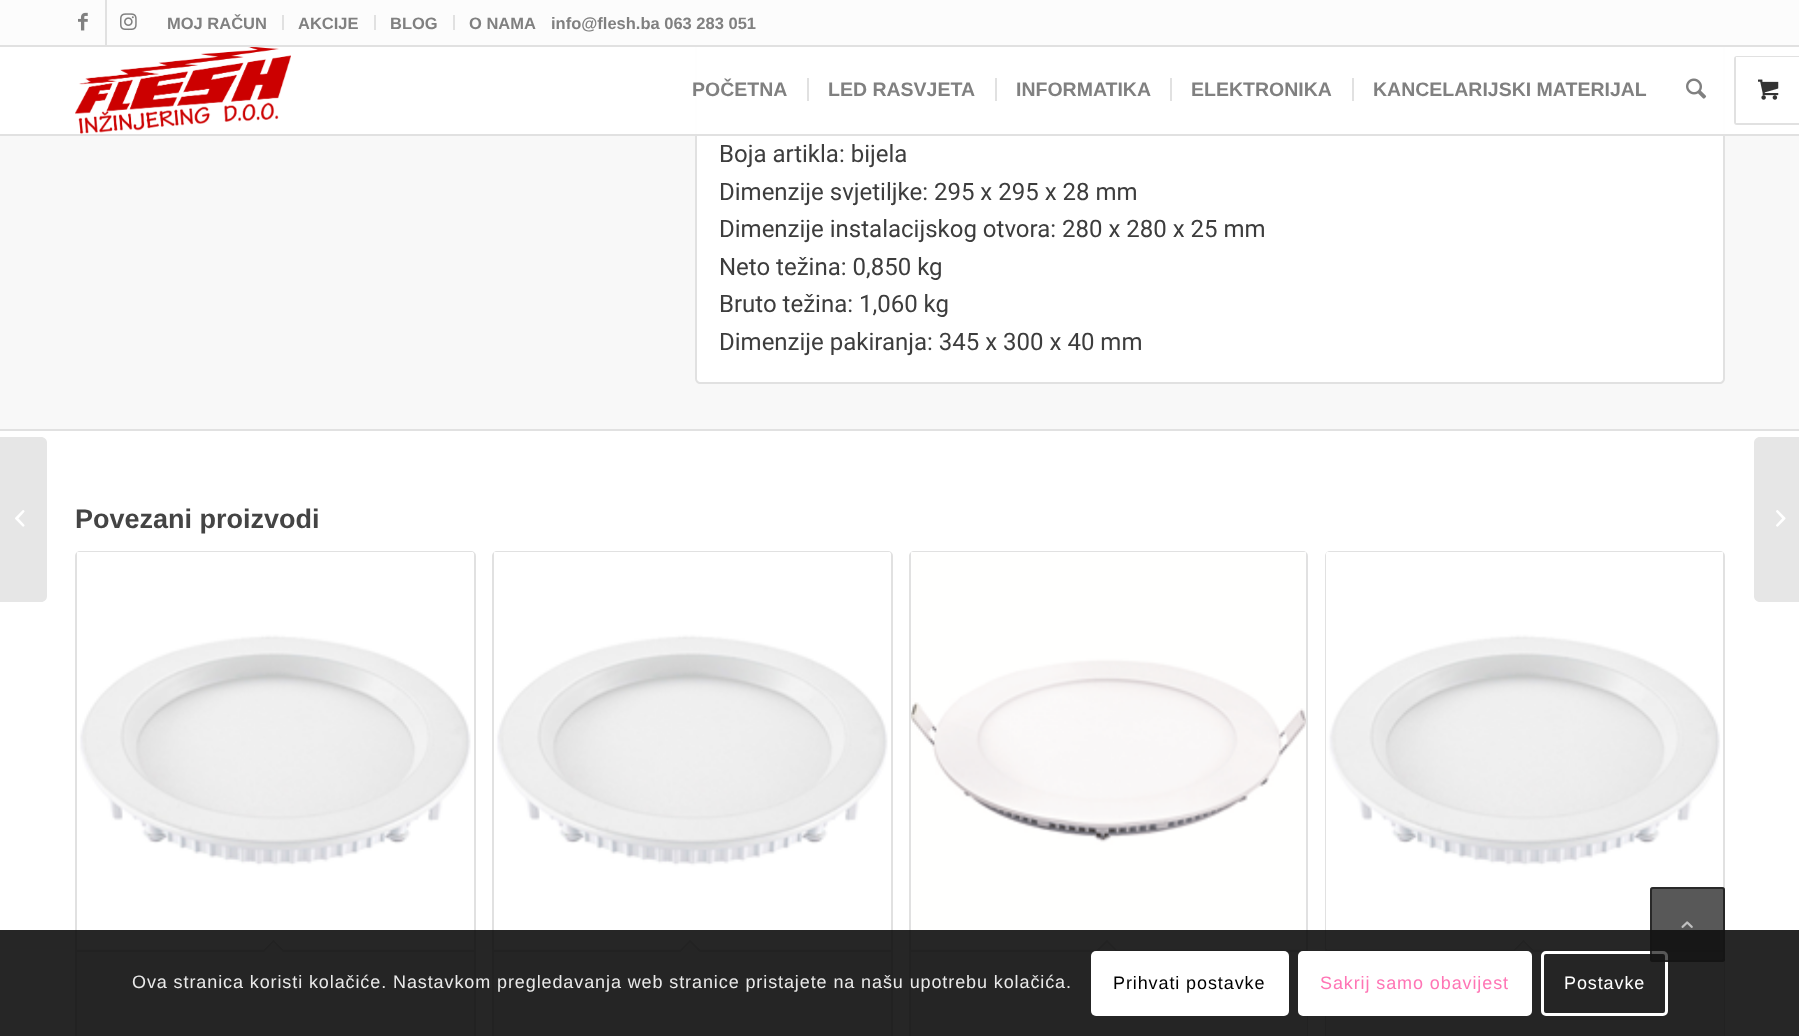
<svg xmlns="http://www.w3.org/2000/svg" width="1799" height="1036">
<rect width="100%" height="100%" fill="#fff"/>
<rect y="47" width="1799" height="382" fill="#f8f8f8"/>
<path d="M696-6h1028v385c0 2-2 4-4 4h-1020c-2 0-4-2-4-4z" fill="#fff" stroke="#e1e1e1" stroke-width="2"/>
<rect width="1799" height="45" fill="#fcfcfc"/>
<rect y="45" width="1799" height="2" fill="#e1e1e1"/>
<rect x="105" width="2" height="45" fill="#e1e1e1"/>
<image x="78" y="12" width="10" height="19" href="media/1.png"/>
<image x="120" y="13" width="17" height="18" href="media/2.png"/>
<rect x="282" y="15" width="2" height="15" fill="#e1e1e1"/>
<text x="167" y="29" style="font-family:Liberation Sans;font-size:16.5px;font-weight:bold;fill:#808080">MOJ RAČUN</text>
<rect x="374" y="15" width="2" height="15" fill="#e1e1e1"/>
<text x="298" y="29" style="font-family:Liberation Sans;font-size:16.5px;font-weight:bold;fill:#808080">AKCIJE</text>
<rect x="453" y="15" width="2" height="15" fill="#e1e1e1"/>
<text x="390" y="29" style="font-family:Liberation Sans;font-size:16.5px;font-weight:bold;fill:#808080">BLOG</text>
<text x="469" y="29" style="font-family:Liberation Sans;font-size:16.5px;font-weight:bold;fill:#808080">O NAMA</text>
<text x="551" y="29" style="font-family:Liberation Sans;font-size:16.5px;font-weight:bold;fill:#808080">info@flesh.ba 063 283 051</text>
<rect y="47" width="1799" height="87" fill="#fffffff2"/>
<rect y="134" width="1799" height="2" fill="#e1e1e1"/>
<image x="75" y="47" width="216" height="87" href="media/3.png"/>
<text x="692" y="96" style="font-family:Liberation Sans;font-size:19.5px;font-weight:bold;fill:#808080">POČETNA</text>
<text x="828" y="96" style="font-family:Liberation Sans;font-size:19.5px;font-weight:bold;fill:#808080">LED RASVJETA</text>
<rect x="807" y="78" width="2" height="23" fill="#e1e1e1"/>
<text x="1016" y="96" style="font-family:Liberation Sans;font-size:19.5px;font-weight:bold;fill:#808080">INFORMATIKA</text>
<rect x="995" y="78" width="2" height="23" fill="#e1e1e1"/>
<text x="1191" y="96" style="font-family:Liberation Sans;font-size:19.5px;font-weight:bold;fill:#808080">ELEKTRONIKA</text>
<rect x="1170" y="78" width="2" height="23" fill="#e1e1e1"/>
<text x="1373" y="96" style="font-family:Liberation Sans;font-size:19.5px;font-weight:bold;fill:#808080">KANCELARIJSKI MATERIJAL</text>
<rect x="1352" y="78" width="2" height="23" fill="#e1e1e1"/>
<image x="1686" y="78" width="21" height="21" href="media/4.png"/>
<rect x="1735" y="57" width="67" height="67" rx="2" fill="none" stroke="#e1e1e1" stroke-width="2"/>
<rect x="1736" y="57" width="63" height="66" fill="#fff"/>
<image x="1758" y="79" width="21" height="21" href="media/5.png"/>
<path d="M0 437h41c3.5 0 6 2.5 6 6v153c0 3.5-2.5 6-6 6h-41z" fill="#e6e6e6"/>
<image x="15" y="510" width="10" height="17" href="media/6.png"/>
<text x="719" y="162" style="font-family:Roboto;font-size:24px;fill:#3d3d3d">Boja artikla: bijela</text>
<text x="719" y="200" style="font-family:Roboto;font-size:24px;fill:#3d3d3d">Dimenzije svjetiljke: 295 x 295 x 28 mm</text>
<text x="719" y="237" style="font-family:Roboto;font-size:24px;fill:#3d3d3d">Dimenzije instalacijskog otvora: 280 x 280 x 25 mm</text>
<text x="719" y="275" style="font-family:Roboto;font-size:24px;fill:#3d3d3d">Neto težina: 0,850 kg</text>
<text x="719" y="312" style="font-family:Roboto;font-size:24px;fill:#3d3d3d">Bruto težina: 1,060 kg</text>
<text x="719" y="350" style="font-family:Roboto;font-size:24px;fill:#3d3d3d">Dimenzije pakiranja: 345 x 300 x 40 mm</text>
<rect y="429" width="1799" height="2" fill="#e1e1e1"/>
<text x="75" y="528" style="font-family:Liberation Sans;font-size:27px;font-weight:bold;fill:#444">Povezani proizvodi</text>
<rect x="76" y="552" width="399" height="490" rx="4" fill="#f8f8f8" stroke="#e1e1e1" stroke-width="2"/>
<image x="77" y="552" width="397" height="397" href="media/7.png"/>
<rect x="77" y="950" width="397" height="2" fill="#e1e1e1"/>
<path d="M273.5 940l10.5 10.5l-10.5 11l-10.5-11z" fill="#f8f8f8"/>
<path d="M273.5 940l10.5 10.5l-1 1.5l-10.5-11z" fill="#e1e1e1"/>
<path d="M273.5 940l1 1l-10.5 11l-1-1.5z" fill="#e1e1e1"/>
<rect x="493" y="552" width="399" height="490" rx="4" fill="#f8f8f8" stroke="#e1e1e1" stroke-width="2"/>
<image x="494" y="552" width="397" height="397" href="media/7.png"/>
<rect x="494" y="950" width="397" height="2" fill="#e1e1e1"/>
<path d="M690 940l11 10.5l-11 11l-10.5-11z" fill="#f8f8f8"/>
<path d="M690 940l11 10.5l-1.5 1.5l-10.5-11z" fill="#e1e1e1"/>
<path d="M690 940l1 1l-10.5 11l-1-1.5z" fill="#e1e1e1"/>
<rect x="910" y="552" width="397" height="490" rx="4" fill="#f8f8f8" stroke="#e1e1e1" stroke-width="2"/>
<image x="911" y="552" width="395" height="397" href="media/8.png"/>
<rect x="1306" y="952" width="1" height="84" fill="#f8f8f8"/>
<rect x="911" y="950" width="396" height="2" fill="#e1e1e1"/>
<path d="M1107 940l10.5 10.5l-10.5 11l-11-11z" fill="#f8f8f8"/>
<path d="M1107 940l10.5 10.5l-1 1.5l-10.5-11z" fill="#e1e1e1"/>
<path d="M1107 940l1 1l-10.5 11l-1.5-1.5z" fill="#e1e1e1"/>
<rect x="1326" y="552" width="398" height="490" rx="4" fill="#f8f8f8" stroke="#e1e1e1" stroke-width="2"/>
<image x="1326" y="552" width="397" height="397" href="media/9.png"/>
<rect x="1326" y="952" width="398" height="84" fill="#f8f8f8"/>
<rect x="1326" y="950" width="398" height="2" fill="#e1e1e1"/>
<path d="M1523.5 940l10.5 10.5l-10.5 11l-10.5-11z" fill="#f8f8f8"/>
<path d="M1523.5 940l10.5 10.5l-1 1.5l-10.5-11z" fill="#e1e1e1"/>
<path d="M1523.5 940l1 1l-10.5 11l-1-1.5z" fill="#e1e1e1"/>
<path d="M1760 437h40v165h-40c-3.5 0-6-2.5-6-6v-153c0-3.5 2.5-6 6-6z" fill="#e6e6e6"/>
<image x="1776" y="510" width="10" height="17" href="media/10.png"/>
<rect y="930" width="1799" height="106" fill="#000000d9"/>
<rect x="1542.5" y="952.5" width="124" height="62" rx="3.5" fill="none" stroke="#fff" stroke-width="3"/>
<rect x="1650" y="887" width="75" height="75" rx="3" fill="#111111b3"/>
<rect x="1651" y="888" width="73" height="73" rx="2" fill="none" stroke="#161616b3" stroke-width="2"/>
<image x="1681" y="921" width="12" height="7" href="media/11.png"/>
<text x="132" y="988" style="font-family:Liberation Sans;font-size:18px;letter-spacing:0.9px;fill:#e9e9e9">Ova stranica koristi kolačiće. Nastavkom pregledavanja web stranice pristajete na našu upotrebu kolačića.</text>
<rect x="1091" y="951" width="198" height="65" rx="5" fill="#fff"/>
<text x="1113" y="989" style="font-family:Liberation Sans;font-size:18px;letter-spacing:0.9px;fill:#000">Prihvati postavke</text>
<rect x="1299.5" y="952.5" width="231" height="62" rx="3.5" fill="#fff" stroke="#fff" stroke-width="3"/>
<text x="1320" y="989" style="font-family:Liberation Sans;font-size:18px;letter-spacing:0.9px;fill:#ff75b5">Sakrij samo obavijest</text>
<text x="1564" y="989" style="font-family:Liberation Sans;font-size:18px;letter-spacing:0.9px;fill:#fff">Postavke</text>
</svg>
